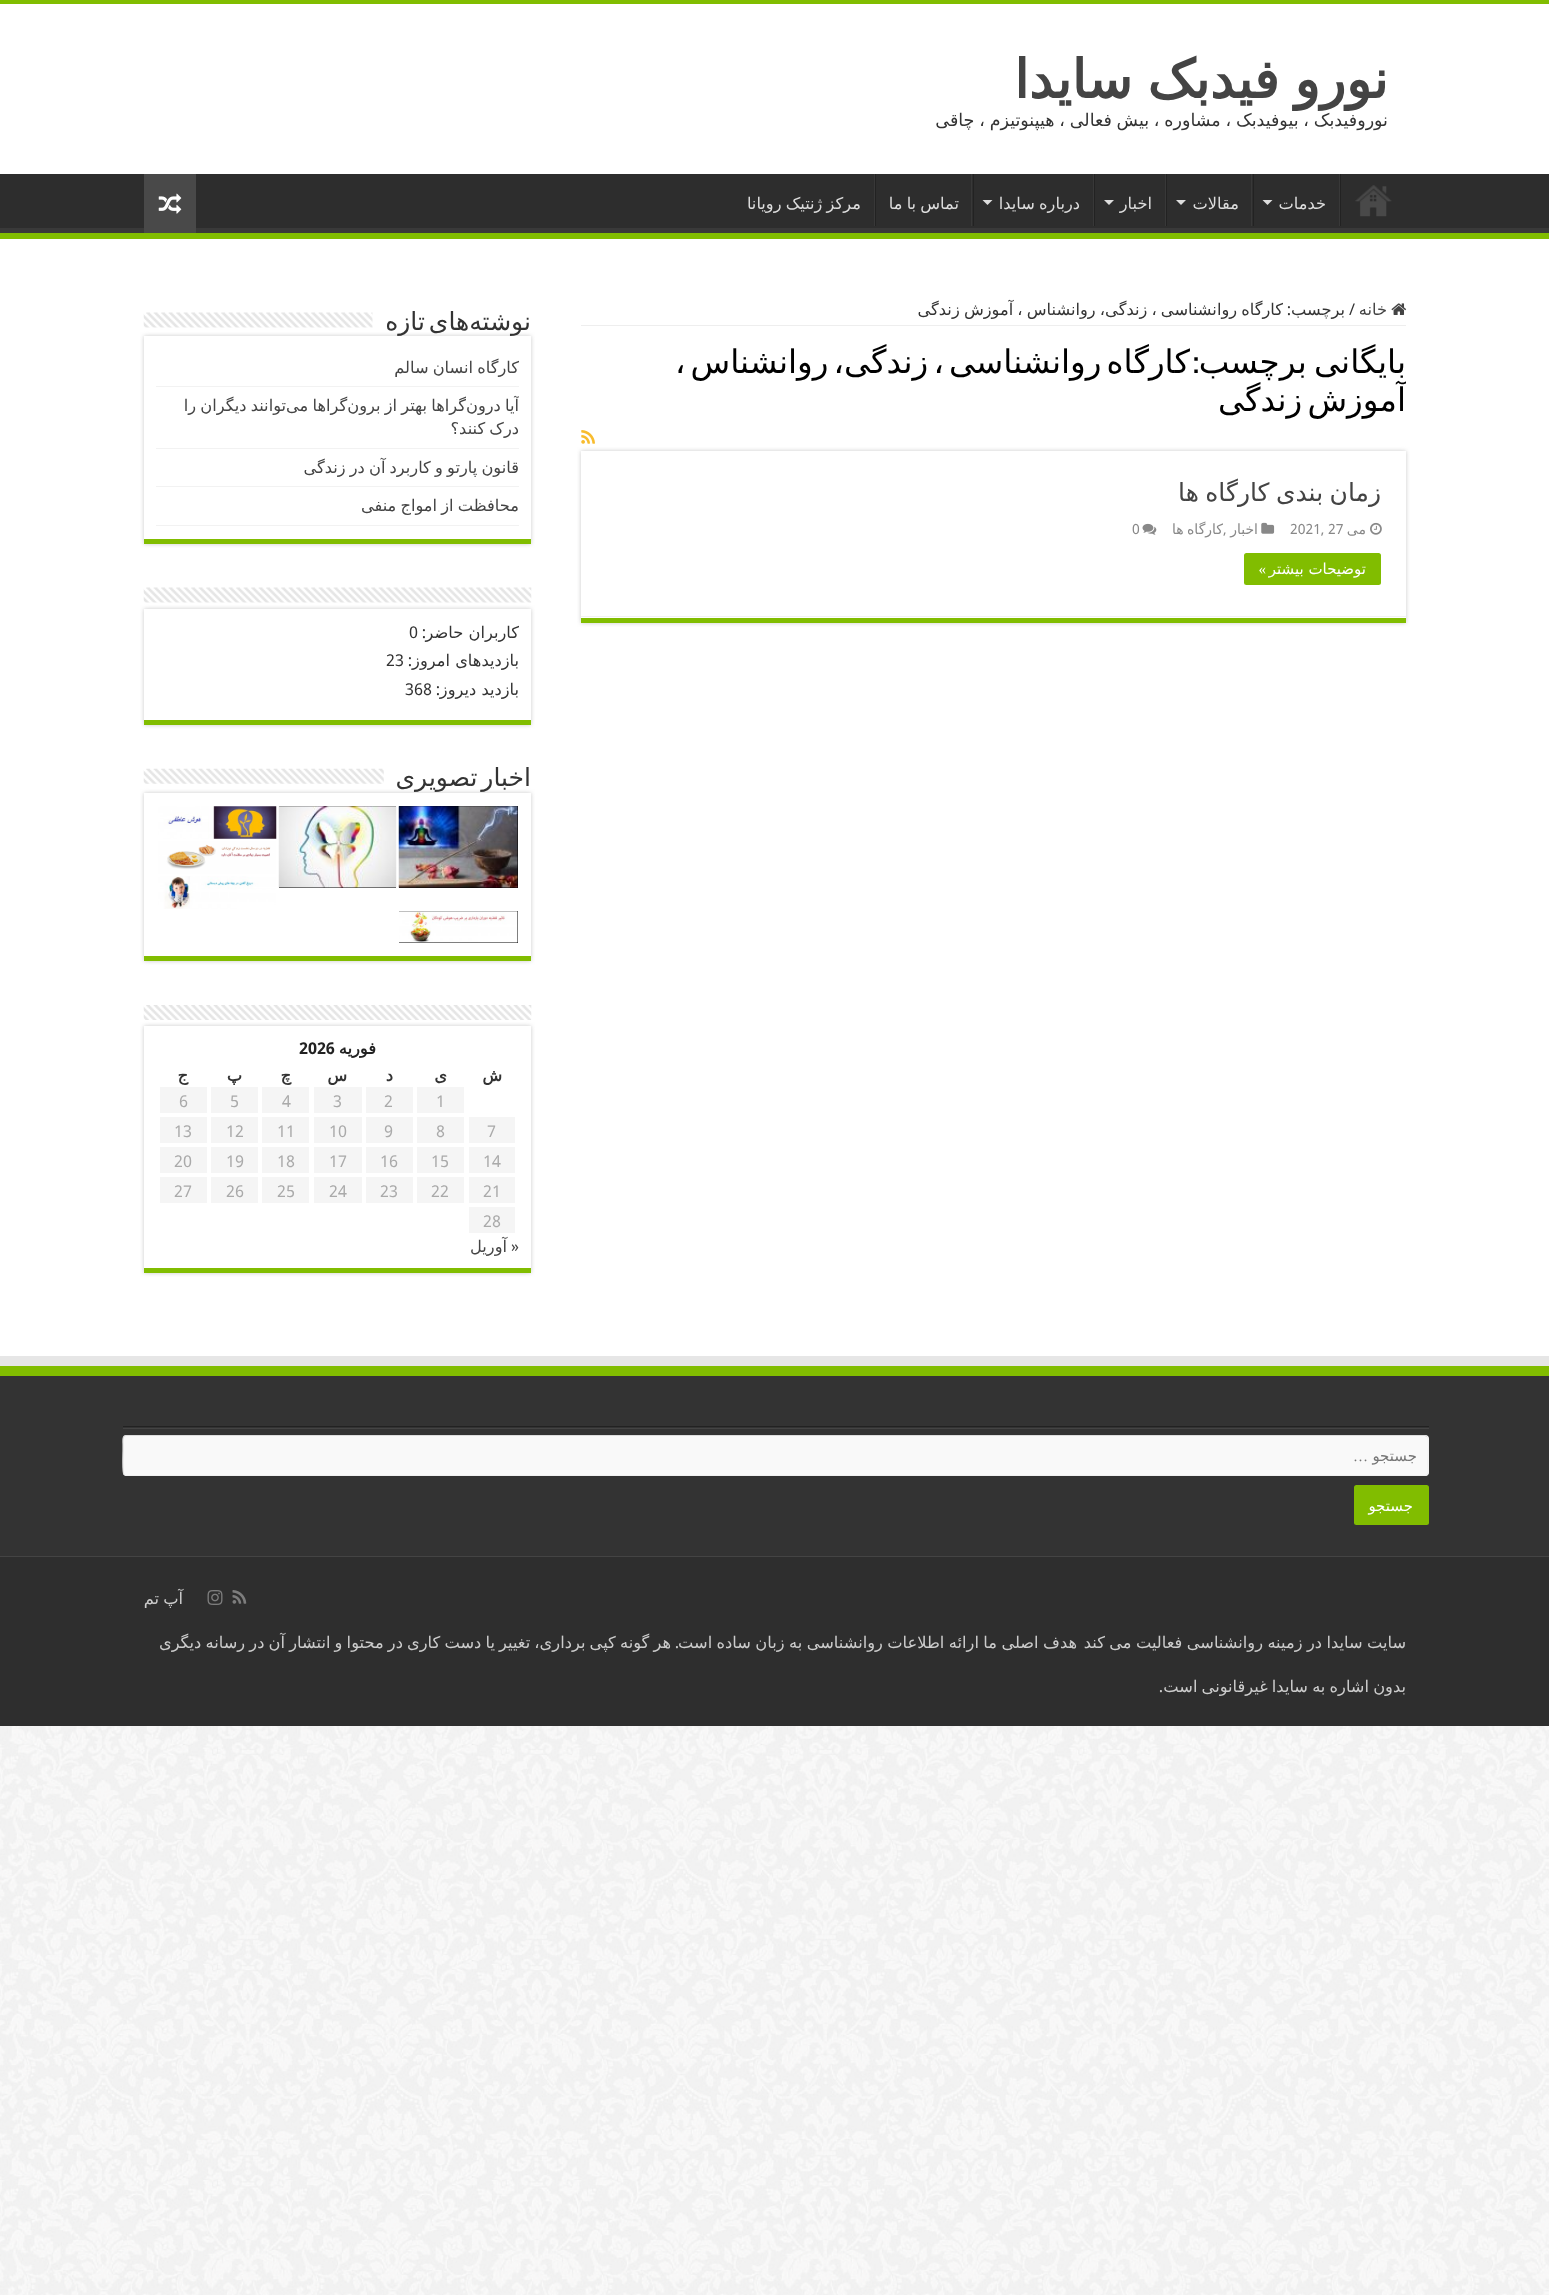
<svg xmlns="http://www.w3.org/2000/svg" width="1549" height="2295">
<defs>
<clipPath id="clip1"><rect y="174" width="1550" height="59"/></clipPath>
<clipPath id="clip2"><rect x="581" y="339" width="825" height="112"/></clipPath>
<clipPath id="clip3"><rect x="156" y="349" width="363" height="37"/></clipPath>
<clipPath id="clip4"><rect x="156" y="388" width="363" height="60"/></clipPath>
<clipPath id="clip5"><rect x="156" y="449" width="363" height="37"/></clipPath>
<clipPath id="clip6"><rect x="156" y="488" width="363" height="37"/></clipPath>
<clipPath id="clip7"><path d="M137 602h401v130h-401zm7 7h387v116h-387z" clip-rule="evenodd"/></clipPath>
<clipPath id="clip8"><path d="M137 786h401v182h-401zm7 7h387v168h-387z" clip-rule="evenodd"/></clipPath>
</defs>
<rect width="100%" height="100%" fill="#fff"/>
<image x="0" y="1726" width="1549" height="569" href="media/1.png"/>
<rect width="1549" height="4" fill="#81bd00"/>
<text x="1388" y="98" word-spacing="-2" style="font-family:DejaVu Sans;font-size:53.25px;font-weight:bold;direction:rtl;fill:#444">نورو فیدبک سایدا</text>
<text x="1388" y="126" word-spacing="-0.75" style="font-family:DejaVu Sans;font-size:17.5px;direction:rtl;fill:#333">نوروفیدبک ، بیوفیدبک ، مشاوره ، بیش فعالی ، هیپنوتیزم ، چاقی</text>
<rect y="174" width="1549" height="54" fill="#2d2d2d"/>
<g clip-path="url(#clip1)">
<path d="M-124 50h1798v306h-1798zm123 116h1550c0 0 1 1 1 2v58c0 1-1 2-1 2h-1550c-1 0-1-1-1-2v-58c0-1 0-2 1-2z" fill="#393939" fill-rule="evenodd"/>
</g>
<rect y="233" width="1549" height="6" fill="#81bd00"/>
<image x="1355" y="185" width="37" height="32" href="media/2.png"/>
<rect x="1340" y="174" width="1" height="52" fill="#222"/>
<rect x="1339" y="174" width="1" height="52" fill="#383838"/>
<text x="1326" y="209" style="font-family:DejaVu Sans;font-size:16.25px;direction:rtl;fill:#ddd">خدمات</text>
<path d="M1262.5 200h10l-5 5z" fill="#ddd"/>
<rect x="1253" y="174" width="1" height="52" fill="#222"/>
<rect x="1251" y="174" width="1" height="52" fill="#383838"/>
<text x="1239" y="209" style="font-family:DejaVu Sans;font-size:16.25px;direction:rtl;fill:#ddd">مقالات</text>
<path d="M1176 200h10l-5 5z" fill="#ddd"/>
<rect x="1166" y="174" width="1" height="52" fill="#222"/>
<rect x="1165" y="174" width="1" height="52" fill="#383838"/>
<text x="1152" y="209" style="font-family:DejaVu Sans;font-size:16.25px;direction:rtl;fill:#ddd">اخبار</text>
<path d="M1104 200h10l-5 5z" fill="#ddd"/>
<rect x="1094" y="174" width="1" height="52" fill="#222"/>
<rect x="1093" y="174" width="1" height="52" fill="#383838"/>
<text x="1080" y="209" word-spacing="-1" style="font-family:DejaVu Sans;font-size:16.25px;direction:rtl;fill:#ddd">درباره سایدا</text>
<path d="M982.5 200h10l-5 5z" fill="#ddd"/>
<rect x="973" y="174" width="1" height="52" fill="#222"/>
<rect x="971" y="174" width="1" height="52" fill="#383838"/>
<text x="959" y="209" word-spacing="-1" style="font-family:DejaVu Sans;font-size:16.25px;direction:rtl;fill:#ddd">تماس با ما</text>
<rect x="875" y="174" width="1" height="52" fill="#222"/>
<rect x="874" y="174" width="1" height="52" fill="#383838"/>
<text x="861" y="209" word-spacing="-1" style="font-family:DejaVu Sans;font-size:16.25px;direction:rtl;fill:#ddd">مرکز ژنتیک رویانا</text>
<rect x="144" y="174" width="52" height="59" fill="#494949"/>
<image x="158" y="193" width="24" height="21" href="media/3.png"/>
<rect x="581" y="325" width="825" height="1" fill="#eee"/>
<image x="1391" y="303" width="16" height="12" href="media/4.png"/>
<text x="1387" y="315" style="font-family:DejaVu Sans;font-size:16.25px;direction:rtl;fill:#444">خانه</text>
<text x="1349" y="315" style="font-family:Droid Sans;font-size:16.25px;fill:#333">/</text>
<text x="1291" y="315" style="font-family:Droid Sans;font-size:16.25px;direction:rtl;fill:#333">:</text>
<text x="1283" y="315" word-spacing="-1" style="font-family:DejaVu Sans;font-size:16.25px;direction:rtl;fill:#333">کارگاه روانشناسی ، زندگی، روانشناس ، آموزش زندگی</text>
<text x="1345" y="315" style="font-family:DejaVu Sans;font-size:16.25px;direction:rtl;fill:#333">برچسب</text>
<text x="1406" y="373" word-spacing="-3" style="font-family:DejaVu Sans;font-size:32.5px;direction:rtl;fill:#000">بایگانی برچسب</text>
<text x="1199" y="373" style="font-family:Bebas Neue;font-size:32.5px;font-weight:bold;direction:rtl;fill:#000">:</text>
<text x="1190" y="373" word-spacing="-5.25" style="font-family:DejaVu Sans;font-size:32.5px;direction:rtl;fill:#000">کارگاه روانشناسی ، زندگی، روانشناس ،</text>
<g clip-path="url(#clip2)">
<text x="1406" y="411" word-spacing="-5.25" style="font-family:DejaVu Sans;font-size:32.5px;direction:rtl;fill:#000">آموزش زندگی</text>
</g>
<image x="581" y="430" width="14" height="14" href="media/5.png"/>
<rect x="581" y="451" width="825" height="172" fill="#cacaca" filter="blur(2px)"/>
<rect x="581" y="451" width="825" height="167" fill="#fff"/>
<rect x="581" y="618" width="825" height="5" fill="#81bd00"/>
<rect x="581" y="616" width="825" height="1" fill="#f2f2f2"/>
<text x="1381" y="501" word-spacing="-1.5" style="font-family:DejaVu Sans;font-size:25px;direction:rtl;fill:#444">زمان بندی کارگاه ها</text>
<image x="1370" y="522" width="12" height="13" href="media/6.png"/>
<text x="1366" y="534" style="font-family:DejaVu Sans;font-size:14px;direction:rtl;fill:#888">می</text>
<text x="1290" y="534" style="font-family:Droid Sans;font-size:14px;fill:#888">2021, 27</text>
<image x="1261" y="522" width="14" height="12" href="media/7.png"/>
<text x="1258" y="534" style="font-family:DejaVu Sans;font-size:14px;direction:rtl;fill:#888">اخبار</text>
<text x="1223" y="534" style="font-family:Droid Sans;font-size:14px;fill:#888">,</text>
<text x="1223" y="534" word-spacing="-1" style="font-family:DejaVu Sans;font-size:14px;direction:rtl;fill:#888">کارگاه ها</text>
<image x="1142" y="523" width="15" height="12" href="media/8.png"/>
<text x="1132" y="534" style="font-family:Droid Sans;font-size:14px;fill:#888">0</text>
<rect x="1244" y="553" width="137" height="32" rx="2.5" fill="#81bd00"/>
<text x="1366" y="574" style="font-family:DejaVu Sans;font-size:15px;direction:rtl;fill:#fff">توضیحات بیشتر</text>
<text x="1266" y="574" style="font-family:Liberation Serif;font-size:15px;direction:rtl;fill:#fff">»</text>
<rect x="144" y="336" width="387" height="208" fill="#cacaca" filter="blur(2px)"/>
<rect x="144" y="336" width="387" height="203" fill="#fff"/>
<text x="531" y="330" word-spacing="-4" style="font-family:DejaVu Sans;font-size:25px;direction:rtl;fill:#333">نوشته‌های تازه</text>
<image x="143" y="312" width="230" height="16" href="media/9.png"/>
<rect x="144" y="539" width="387" height="5" fill="#81bd00"/>
<rect x="156" y="386" width="363" height="1" fill="#f2f2f2"/>
<g clip-path="url(#clip3)">
<text x="519" y="373" word-spacing="-1" style="font-family:DejaVu Sans;font-size:16.25px;direction:rtl;fill:#444">کارگاه انسان سالم</text>
</g>
<rect x="156" y="448" width="363" height="1" fill="#f2f2f2"/>
<g clip-path="url(#clip4)">
<text x="519" y="411" word-spacing="-1" style="font-family:DejaVu Sans;font-size:16.25px;direction:rtl;fill:#444">آیا درون‌گراها بهتر از برون‌گراها می‌توانند دیگران را</text>
</g>
<text x="519" y="434" word-spacing="-1" style="font-family:DejaVu Sans;font-size:16.25px;direction:rtl;fill:#444">درک کنند؟</text>
<rect x="156" y="486" width="363" height="1" fill="#f2f2f2"/>
<g clip-path="url(#clip5)">
<text x="519" y="473" word-spacing="-1" style="font-family:DejaVu Sans;font-size:16.25px;direction:rtl;fill:#444">قانون پارتو و کاربرد آن در زندگی</text>
</g>
<rect x="156" y="525" width="363" height="1" fill="#f2f2f2"/>
<g clip-path="url(#clip6)">
<text x="519" y="511" word-spacing="-1" style="font-family:DejaVu Sans;font-size:16.25px;direction:rtl;fill:#444">محافظت از امواج منفی</text>
</g>
<g clip-path="url(#clip7)">
<rect x="144" y="609" width="387" height="116" fill="#cacaca" filter="blur(2px)"/>
</g>
<image x="143" y="587" width="389" height="16" href="media/10.png"/>
<rect x="144" y="720" width="387" height="5" fill="#81bd00"/>
<text x="519" y="638" style="font-family:DejaVu Sans;font-size:16.25px;direction:rtl;fill:#333">کاربران حاضر</text>
<text x="426" y="638" style="font-family:Droid Sans;font-size:16.25px;direction:rtl;fill:#333">:</text>
<text x="409" y="638" style="font-family:Droid Sans;font-size:16.25px;fill:#333">0</text>
<text x="412" y="666" style="font-family:Droid Sans;font-size:16.25px;direction:rtl;fill:#333">:</text>
<text x="519" y="666" style="font-family:DejaVu Sans;font-size:16.25px;direction:rtl;fill:#333">بازدیدهای امروز</text>
<text x="386" y="666" style="font-family:Droid Sans;font-size:16.25px;fill:#333">23</text>
<text x="519" y="695" style="font-family:DejaVu Sans;font-size:16.25px;direction:rtl;fill:#333">بازدید دیروز</text>
<text x="440" y="695" style="font-family:Droid Sans;font-size:16.25px;direction:rtl;fill:#333">:</text>
<text x="405" y="695" style="font-family:Droid Sans;font-size:16.25px;fill:#333">368</text>
<g clip-path="url(#clip8)">
<rect x="144" y="793" width="387" height="168" fill="#cacaca" filter="blur(2px)"/>
</g>
<text x="531" y="786" word-spacing="-4" style="font-family:DejaVu Sans;font-size:25px;direction:rtl;fill:#333">اخبار تصویری</text>
<image x="143" y="768" width="241" height="16" href="media/11.png"/>
<rect x="144" y="956" width="387" height="5" fill="#81bd00"/>
<rect x="399" y="806" width="119" height="82" fill="#000"/>
<image x="398" y="806" width="120" height="82" href="media/12.png"/>
<rect x="279" y="806" width="117" height="82" fill="#000"/>
<image x="278" y="806" width="119" height="82" href="media/13.png"/>
<image x="158" y="806" width="119" height="33" href="media/14.png"/>
<image x="158" y="841" width="118" height="33" href="media/15.png"/>
<image x="158" y="876" width="118" height="33" href="media/16.png"/>
<rect x="399" y="911" width="119" height="32" fill="#000"/>
<image x="399" y="911" width="119" height="32" href="media/17.png"/>
<rect x="144" y="1026" width="387" height="247" fill="#cacaca" filter="blur(2px)"/>
<image x="143" y="1005" width="389" height="15" href="media/18.png"/>
<rect x="144" y="1026" width="387" height="242" fill="#fff"/>
<rect x="144" y="1268" width="387" height="5" fill="#81bd00"/>
<text x="376" y="1054" style="font-family:DejaVu Sans;font-size:16.25px;font-weight:bold;direction:rtl;fill:#222">فوریه</text>
<text x="299" y="1054" style="font-family:Droid Sans;font-size:16.25px;font-weight:bold;fill:#222">2026</text>
<text x="502" y="1081" style="font-family:DejaVu Sans;font-size:16.25px;font-weight:bold;direction:rtl;fill:#333">ش</text>
<text x="447" y="1081" style="font-family:DejaVu Sans;font-size:16.25px;font-weight:bold;direction:rtl;fill:#333">ی</text>
<text x="393" y="1081" style="font-family:DejaVu Sans;font-size:16.25px;font-weight:bold;direction:rtl;fill:#333">د</text>
<text x="347" y="1081" style="font-family:DejaVu Sans;font-size:16.25px;font-weight:bold;direction:rtl;fill:#333">س</text>
<text x="291" y="1081" style="font-family:DejaVu Sans;font-size:16.25px;font-weight:bold;direction:rtl;fill:#333">چ</text>
<text x="242" y="1081" style="font-family:DejaVu Sans;font-size:16.25px;font-weight:bold;direction:rtl;fill:#333">پ</text>
<text x="188" y="1081" style="font-family:DejaVu Sans;font-size:16.25px;font-weight:bold;direction:rtl;fill:#333">ج</text>
<rect x="417" y="1087" width="47" height="26" fill="#f5f5f5"/>
<text x="436" y="1107" style="font-family:Droid Sans;font-size:16.25px;fill:#aaa">1</text>
<rect x="366" y="1087" width="47" height="26" fill="#f5f5f5"/>
<text x="384" y="1107" style="font-family:Droid Sans;font-size:16.25px;fill:#aaa">2</text>
<rect x="314" y="1087" width="48" height="26" fill="#f5f5f5"/>
<text x="333" y="1107" style="font-family:Droid Sans;font-size:16.25px;fill:#aaa">3</text>
<rect x="262" y="1087" width="47" height="26" fill="#f5f5f5"/>
<text x="282" y="1107" style="font-family:Droid Sans;font-size:16.25px;fill:#aaa">4</text>
<rect x="211" y="1087" width="47" height="26" fill="#f5f5f5"/>
<text x="230" y="1107" style="font-family:Droid Sans;font-size:16.25px;fill:#aaa">5</text>
<rect x="160" y="1087" width="47" height="26" fill="#f5f5f5"/>
<text x="179" y="1107" style="font-family:Droid Sans;font-size:16.25px;fill:#aaa">6</text>
<rect x="469" y="1117" width="46" height="26" fill="#f5f5f5"/>
<text x="487" y="1137" style="font-family:Droid Sans;font-size:16.25px;fill:#aaa">7</text>
<rect x="417" y="1117" width="47" height="26" fill="#f5f5f5"/>
<text x="436" y="1137" style="font-family:Droid Sans;font-size:16.25px;fill:#aaa">8</text>
<rect x="366" y="1117" width="47" height="26" fill="#f5f5f5"/>
<text x="384" y="1137" style="font-family:Droid Sans;font-size:16.25px;fill:#aaa">9</text>
<rect x="314" y="1117" width="48" height="26" fill="#f5f5f5"/>
<text x="329" y="1137" style="font-family:Droid Sans;font-size:16.25px;fill:#aaa">10</text>
<rect x="262" y="1117" width="47" height="26" fill="#f5f5f5"/>
<text x="277" y="1137" style="font-family:Droid Sans;font-size:16.25px;fill:#aaa">11</text>
<rect x="211" y="1117" width="47" height="26" fill="#f5f5f5"/>
<text x="226" y="1137" style="font-family:Droid Sans;font-size:16.25px;fill:#aaa">12</text>
<rect x="160" y="1117" width="47" height="26" fill="#f5f5f5"/>
<text x="174" y="1137" style="font-family:Droid Sans;font-size:16.25px;fill:#aaa">13</text>
<rect x="469" y="1147" width="46" height="26" fill="#f5f5f5"/>
<text x="483" y="1167" style="font-family:Droid Sans;font-size:16.25px;fill:#aaa">14</text>
<rect x="417" y="1147" width="47" height="26" fill="#f5f5f5"/>
<text x="431" y="1167" style="font-family:Droid Sans;font-size:16.25px;fill:#aaa">15</text>
<rect x="366" y="1147" width="47" height="26" fill="#f5f5f5"/>
<text x="380" y="1167" style="font-family:Droid Sans;font-size:16.25px;fill:#aaa">16</text>
<rect x="314" y="1147" width="48" height="26" fill="#f5f5f5"/>
<text x="329" y="1167" style="font-family:Droid Sans;font-size:16.25px;fill:#aaa">17</text>
<rect x="262" y="1147" width="47" height="26" fill="#f5f5f5"/>
<text x="277" y="1167" style="font-family:Droid Sans;font-size:16.25px;fill:#aaa">18</text>
<rect x="211" y="1147" width="47" height="26" fill="#f5f5f5"/>
<text x="226" y="1167" style="font-family:Droid Sans;font-size:16.25px;fill:#aaa">19</text>
<rect x="160" y="1147" width="47" height="26" fill="#f5f5f5"/>
<text x="174" y="1167" style="font-family:Droid Sans;font-size:16.25px;fill:#aaa">20</text>
<rect x="469" y="1177" width="46" height="26" fill="#f5f5f5"/>
<text x="483" y="1197" style="font-family:Droid Sans;font-size:16.25px;fill:#aaa">21</text>
<rect x="417" y="1177" width="47" height="26" fill="#f5f5f5"/>
<text x="431" y="1197" style="font-family:Droid Sans;font-size:16.25px;fill:#aaa">22</text>
<rect x="366" y="1177" width="47" height="26" fill="#f5f5f5"/>
<text x="380" y="1197" style="font-family:Droid Sans;font-size:16.25px;fill:#aaa">23</text>
<rect x="314" y="1177" width="48" height="26" fill="#f5f5f5"/>
<text x="329" y="1197" style="font-family:Droid Sans;font-size:16.25px;fill:#aaa">24</text>
<rect x="262" y="1177" width="47" height="26" fill="#f5f5f5"/>
<text x="277" y="1197" style="font-family:Droid Sans;font-size:16.25px;fill:#aaa">25</text>
<rect x="211" y="1177" width="47" height="26" fill="#f5f5f5"/>
<text x="226" y="1197" style="font-family:Droid Sans;font-size:16.25px;fill:#aaa">26</text>
<rect x="160" y="1177" width="47" height="26" fill="#f5f5f5"/>
<text x="174" y="1197" style="font-family:Droid Sans;font-size:16.25px;fill:#aaa">27</text>
<rect x="469" y="1207" width="46" height="26" fill="#f5f5f5"/>
<text x="483" y="1227" style="font-family:Droid Sans;font-size:16.25px;fill:#aaa">28</text>
<text x="519" y="1252" style="font-family:Droid Sans;font-size:16.25px;direction:rtl;fill:#444">«</text>
<text x="507" y="1252" style="font-family:DejaVu Sans;font-size:16.25px;direction:rtl;fill:#444">آوریل</text>
<rect y="1356" width="1549" height="10" fill="#e6e6e6"/>
<rect y="1376" width="1549" height="180" fill="#333"/>
<rect y="1366" width="1549" height="10" fill="#81bd00"/>
<rect x="123" y="1426" width="1306" height="1" fill="#222"/>
<rect x="123" y="1428" width="1306" height="1" fill="#444"/>
<rect x="123" y="1435" width="1306" height="41" rx="4" fill="#f9f9f9"/>
<path d="M1427 1436.5c2.5 2 1 21 1 24.5v6c0 2 1.5 8.5-3 8.5h-1299l-2-1" fill="none" stroke="#f1f1f1" stroke-width="1.2"/>
<path d="M124 1474.5c-2-2-1-20.5-1-24.5v-5.5c0-2.5-1-9 3-9h1299l2 1" fill="none" stroke="#ddd" stroke-width="1.2"/>
<text x="1417" y="1461" style="font-family:DejaVu Sans;font-size:15px;direction:rtl;fill:#757575">جستجو</text>
<text x="1368" y="1461" style="font-family:Liberation Serif;font-size:15px;direction:rtl;fill:#757575">…</text>
<rect x="1354" y="1485" width="75" height="40" rx="2.5" fill="#81bd00"/>
<text x="1413" y="1511" style="font-family:DejaVu Sans;font-size:15px;direction:rtl;fill:#fff">جستجو</text>
<rect y="1557" width="1549" height="169" fill="#2e2e2e"/>
<rect y="1556" width="1549" height="1" fill="#444"/>
<image x="232" y="1590" width="15" height="14" href="media/19.png"/>
<image x="207" y="1590" width="16" height="15" href="media/20.png"/>
<text x="183" y="1604" word-spacing="-1" style="font-family:DejaVu Sans;font-size:16.25px;direction:rtl;fill:#ccc">آپ تم</text>
<text x="1406" y="1648" word-spacing="-0.75" style="font-family:DejaVu Sans;font-size:16.25px;direction:rtl;fill:#ccc">سایت سایدا در زمینه روانشناسی فعالیت می کند</text>
<text x="1077" y="1648" word-spacing="-0.75" style="font-family:DejaVu Sans;font-size:16.25px;direction:rtl;fill:#ccc">هدف اصلی ما ارائه اطلاعات روانشناسی به زبان ساده است</text>
<text x="679" y="1648" style="font-family:Droid Sans;font-size:16.25px;direction:rtl;fill:#ccc">.</text>
<text x="671" y="1648" word-spacing="-1" style="font-family:DejaVu Sans;font-size:16.25px;direction:rtl;fill:#ccc">هر گونه کپی برداری، تغییر یا دست کاری در محتوا و انتشار آن در رسانه دیگری</text>
<text x="1406" y="1692" word-spacing="-1" style="font-family:DejaVu Sans;font-size:16.25px;direction:rtl;fill:#ccc">بدون اشاره به سایدا غیرقانونی است</text>
<text x="1163" y="1692" style="font-family:Droid Sans;font-size:16.25px;direction:rtl;fill:#ccc">.</text>
</svg>
